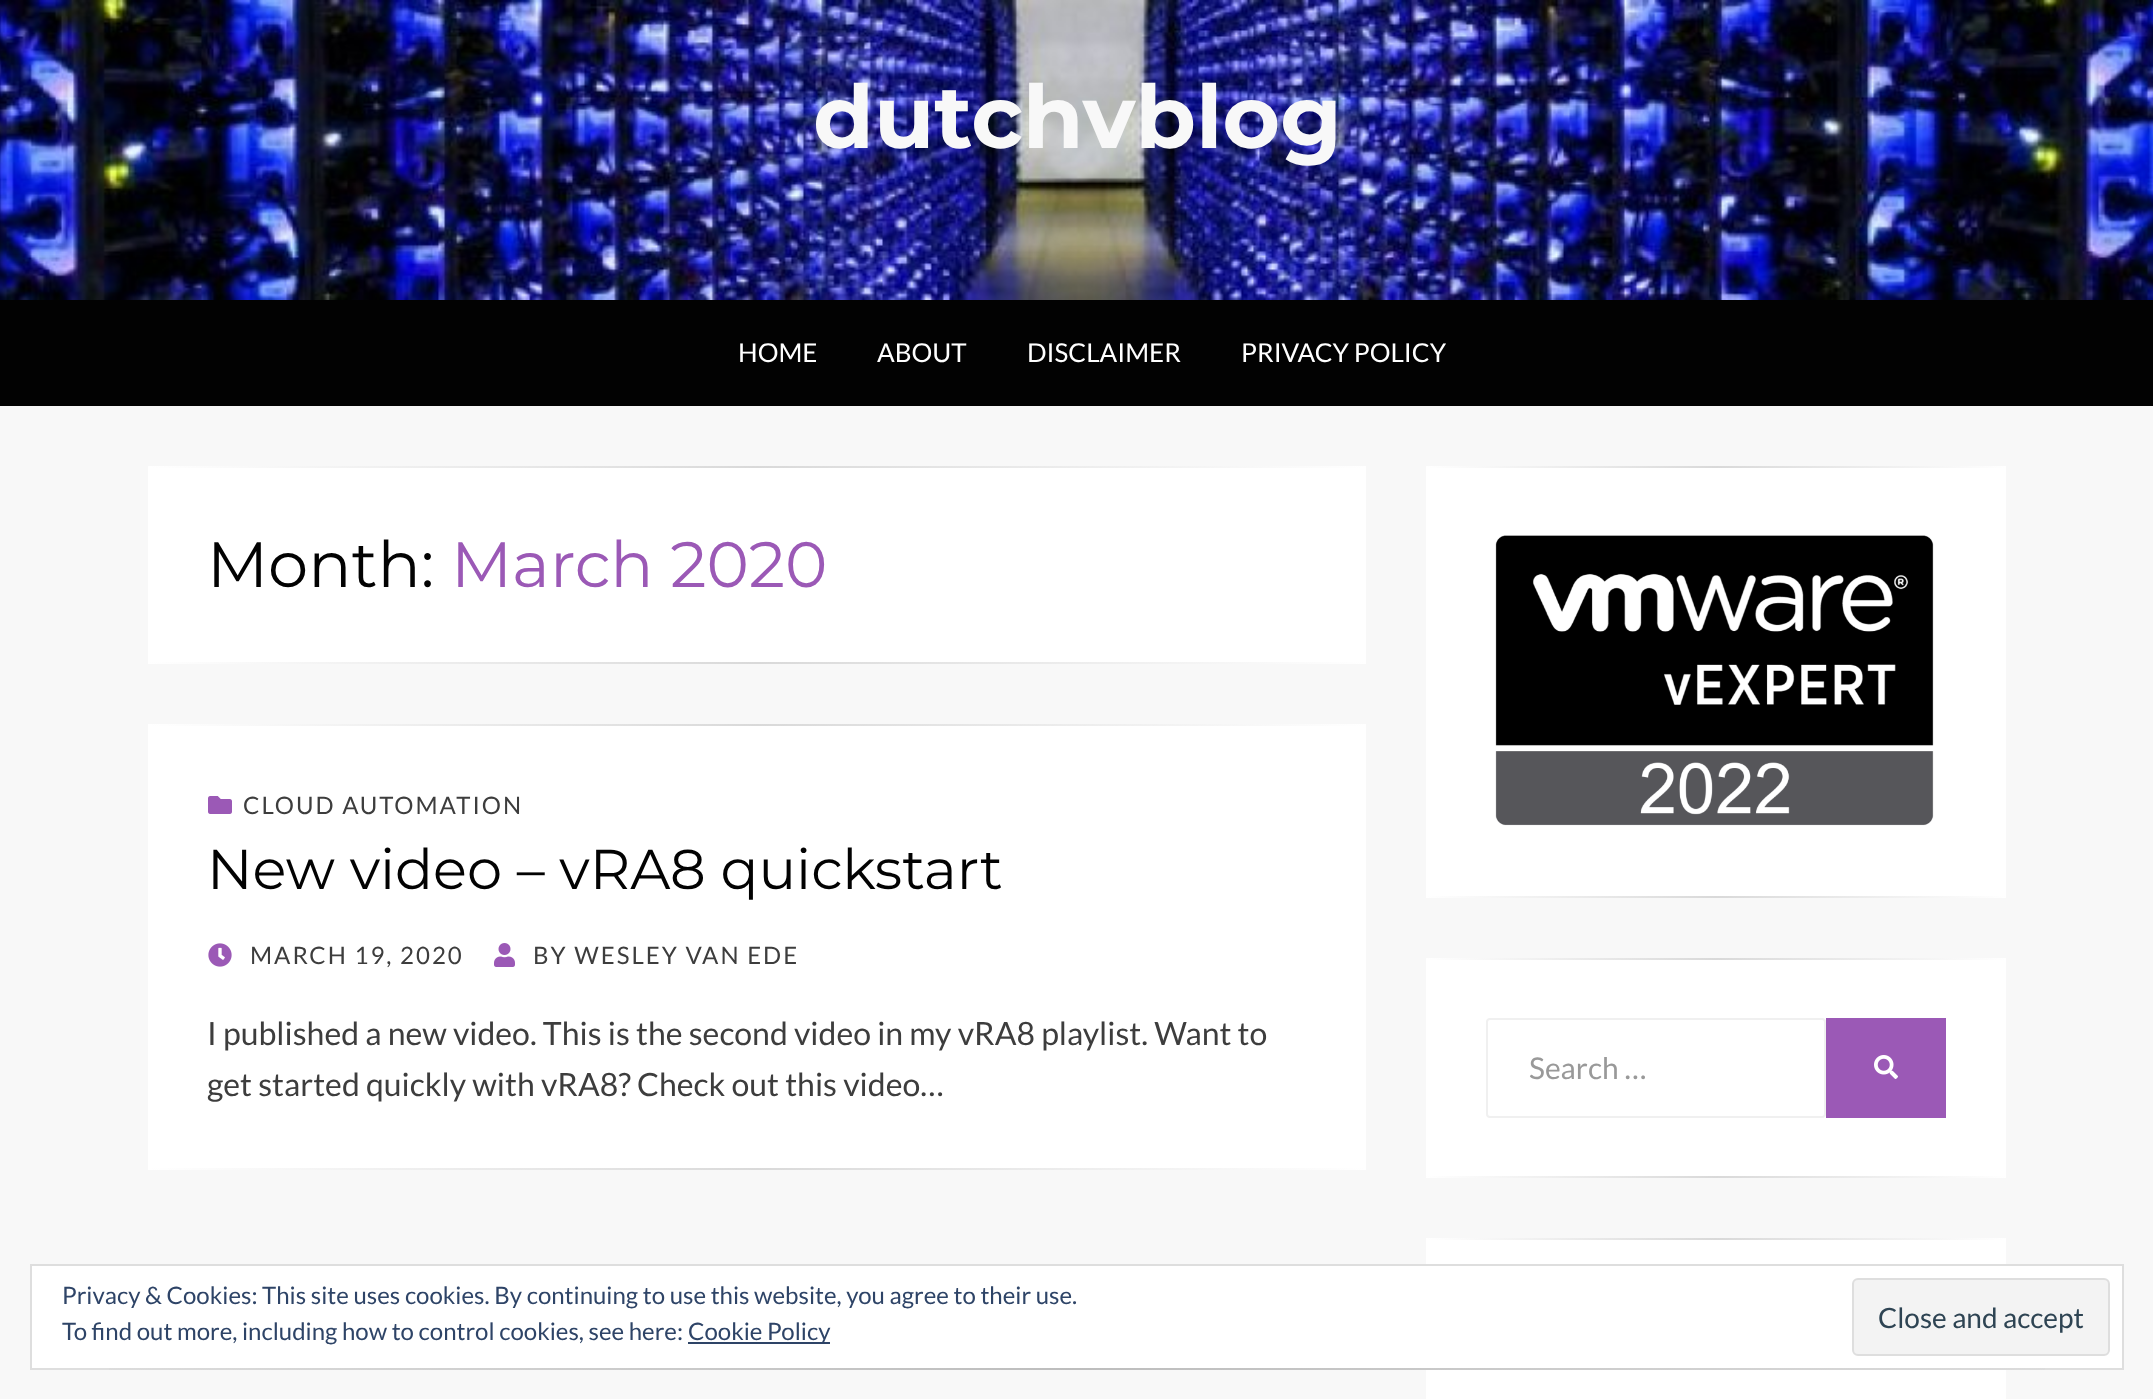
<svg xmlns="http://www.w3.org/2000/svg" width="2153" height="1399">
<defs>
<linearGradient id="g1" gradientUnits="userSpaceOnUse" x1="148" y1="467" x2="1366" y2="467"><stop offset="0" stop-color="#fff"/><stop offset="0.5" stop-color="#d9d9d9"/><stop offset="1" stop-color="#fff"/></linearGradient>
<linearGradient id="g2" gradientUnits="userSpaceOnUse" x1="148" y1="663" x2="1366" y2="663"><stop offset="0" stop-color="#fff"/><stop offset="0.5" stop-color="#d9d9d9"/><stop offset="1" stop-color="#fff"/></linearGradient>
<linearGradient id="g3" gradientUnits="userSpaceOnUse" x1="148" y1="725" x2="1366" y2="725"><stop offset="0" stop-color="#fff"/><stop offset="0.5" stop-color="#d9d9d9"/><stop offset="1" stop-color="#fff"/></linearGradient>
<linearGradient id="g4" gradientUnits="userSpaceOnUse" x1="148" y1="1169" x2="1366" y2="1169"><stop offset="0" stop-color="#fff"/><stop offset="0.5" stop-color="#d9d9d9"/><stop offset="1" stop-color="#fff"/></linearGradient>
<linearGradient id="g5" gradientUnits="userSpaceOnUse" x1="1426" y1="467" x2="2006" y2="467"><stop offset="0" stop-color="#fff"/><stop offset="0.5" stop-color="#d9d9d9"/><stop offset="1" stop-color="#fff"/></linearGradient>
<linearGradient id="g6" gradientUnits="userSpaceOnUse" x1="1426" y1="897" x2="2006" y2="897"><stop offset="0" stop-color="#fff"/><stop offset="0.5" stop-color="#d9d9d9"/><stop offset="1" stop-color="#fff"/></linearGradient>
<linearGradient id="g7" gradientUnits="userSpaceOnUse" x1="1426" y1="959" x2="2006" y2="959"><stop offset="0" stop-color="#fff"/><stop offset="0.5" stop-color="#d9d9d9"/><stop offset="1" stop-color="#fff"/></linearGradient>
<linearGradient id="g8" gradientUnits="userSpaceOnUse" x1="1426" y1="1177" x2="2006" y2="1177"><stop offset="0" stop-color="#fff"/><stop offset="0.5" stop-color="#d9d9d9"/><stop offset="1" stop-color="#fff"/></linearGradient>
<linearGradient id="g9" gradientUnits="userSpaceOnUse" x1="1426" y1="1239" x2="2006" y2="1239"><stop offset="0" stop-color="#fff"/><stop offset="0.5" stop-color="#d9d9d9"/><stop offset="1" stop-color="#fff"/></linearGradient>
<linearGradient id="g10" gradientUnits="userSpaceOnUse" x1="30" y1="1369" x2="2124" y2="1369"><stop offset="0" stop-color="#dedede"/><stop offset="0.5" stop-color="#bdbdbd"/><stop offset="1" stop-color="#dedede"/></linearGradient>
</defs>
<rect width="100%" height="100%" fill="#f8f8f8"/>
<image x="0" y="0" width="2153" height="300" href="media/1.png"/>
<text x="813" y="148" style="font-family:Montserrat;font-size:88px;font-weight:bold;fill:#f8f8f8">dutchvblog</text>
<rect y="300" width="2153" height="106" fill="#020202"/>
<text x="738" y="362" style="font-family:Lato;font-size:26px;fill:#fff">HOME</text>
<text x="877" y="362" style="font-family:Lato;font-size:26px;fill:#fff">ABOUT</text>
<text x="1027" y="362" style="font-family:Lato;font-size:26px;fill:#fff">DISCLAIMER</text>
<text x="1241" y="362" style="font-family:Lato;font-size:26px;fill:#fff">PRIVACY POLICY</text>
<rect x="148" y="468" width="1218" height="194" fill="#fff"/>
<rect x="148" y="466" width="1218" height="2" fill="url(#g1)"/>
<text x="207" y="587" style="font-family:Montserrat;font-size:64px;fill:#020202">Month:</text>
<text x="451" y="587" style="font-family:Montserrat;font-size:64px;fill:#9b59b6">March 2020</text>
<rect x="148" y="662" width="1218" height="2" fill="url(#g2)"/>
<rect x="148" y="726" width="1218" height="442" fill="#fff"/>
<rect x="148" y="724" width="1218" height="2" fill="url(#g3)"/>
<image x="208" y="796" width="24" height="18" href="media/2.png"/>
<text x="243" y="814" style="font-family:Lato;font-size:24px;letter-spacing:2px;fill:#3d3d3d">CLOUD AUTOMATION</text>
<text x="207" y="889" style="font-family:Montserrat;font-size:56px;fill:#020202">New video – vRA8 quickstart</text>
<image x="208" y="943" width="24" height="24" href="media/3.png"/>
<text x="250" y="964" style="font-family:Lato;font-size:24px;letter-spacing:2px;fill:#3d3d3d">MARCH 19, 2020</text>
<image x="494" y="943" width="21" height="24" href="media/4.png"/>
<text x="533" y="964" style="font-family:Lato;font-size:24px;letter-spacing:2px;fill:#3d3d3d">BY WESLEY VAN EDE</text>
<text x="207" y="1045" style="font-family:Lato;font-size:32px;fill:#3d3d3d">I published a new video. This is the second video in my vRA8 playlist. Want to</text>
<text x="207" y="1096" style="font-family:Lato;font-size:32px;fill:#3d3d3d">get started quickly with vRA8? Check out this video…</text>
<rect x="148" y="1168" width="1218" height="2" fill="url(#g4)"/>
<rect x="1426" y="468" width="580" height="428" fill="#fff"/>
<rect x="1426" y="466" width="580" height="2" fill="url(#g5)"/>
<image x="1495" y="535" width="439" height="291" href="media/5.png"/>
<rect x="1426" y="896" width="580" height="2" fill="url(#g6)"/>
<rect x="1426" y="960" width="580" height="216" fill="#fff"/>
<rect x="1426" y="958" width="580" height="2" fill="url(#g7)"/>
<rect x="1487" y="1019" width="338" height="98" rx="3" fill="none" stroke="#f0f0f0" stroke-width="2"/>
<text x="1529" y="1079" style="font-family:Lato;font-size:30px;fill:#999">Search …</text>
<rect x="1826" y="1018" width="120" height="100" fill="#9b59b6"/>
<image x="1874" y="1055" width="24" height="24" href="media/6.png"/>
<rect x="1426" y="1176" width="580" height="2" fill="url(#g8)"/>
<rect x="1426" y="1240" width="580" height="159" fill="#fff"/>
<rect x="1426" y="1238" width="580" height="2" fill="url(#g9)"/>
<rect x="31" y="1265" width="2092" height="104" fill="#fff" stroke="#dedede" stroke-width="2"/>
<text x="62" y="1304" style="font-family:Lato;font-size:24px;fill:#2e4467">Privacy &amp; Cookies: This site uses cookies. By continuing to use this website, you agree to their use.</text>
<text x="62" y="1340" style="font-family:Lato;font-size:24px;fill:#2e4467">To find out more, including how to control cookies, see here:</text>
<rect x="688" y="1342" width="142" height="2" fill="#2e4467"/>
<text x="688" y="1340" style="font-family:Lato;font-size:24px;fill:#2e4467">Cookie Policy</text>
<rect x="1853" y="1279" width="256" height="76" rx="5" fill="#f3f3f3" stroke="#dedede" stroke-width="2"/>
<text x="1878" y="1328" style="font-family:Lato;font-size:28px;fill:#2e4453">Close and accept</text>
<rect x="109" y="1368" width="1936" height="2" fill="url(#g10)"/>
</svg>
